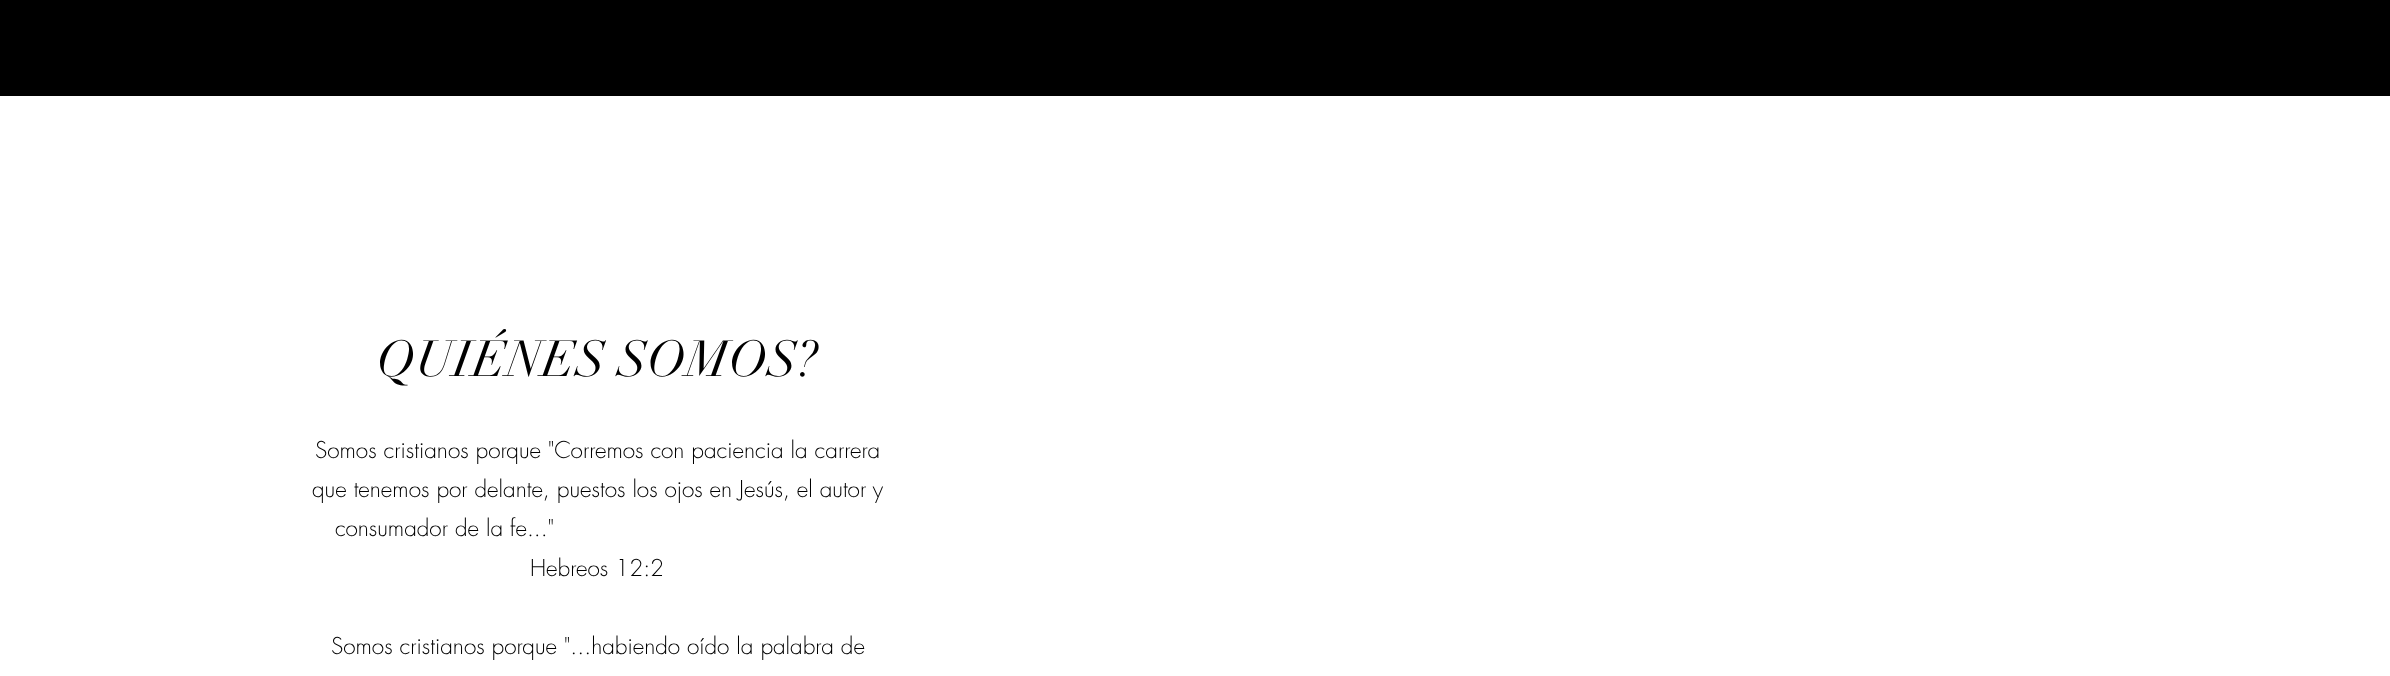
<svg xmlns="http://www.w3.org/2000/svg" width="2390" height="676">
<rect width="100%" height="100%" fill="#fff"/>
<rect width="2390" height="96" fill="#000"/>
<text x="377" y="376" style="font-family:didot;font-size:50px;fill:#000">QUIÉNES SOMOS?</text>
<text x="315" y="458" style="font-family:futura;font-size:22.5px;font-weight:300;fill:#000">Somos cristianos porque "Corremos con paciencia la carrera</text>
<text x="312" y="497" style="font-family:futura;font-size:22.5px;font-weight:300;fill:#000">que tenemos por delante, puestos los ojos en Jesús, el autor y</text>
<text x="335" y="536" style="font-family:futura;font-size:22.5px;font-weight:300;fill:#000">consumador de la fe..."</text>
<text x="530" y="576" style="font-family:futura;font-size:22.5px;font-weight:300;fill:#000">Hebreos 12:2</text>
<text x="331" y="654" style="font-family:futura;font-size:22.5px;font-weight:300;fill:#000">Somos cristianos porque "...habiendo oído la palabra de</text>
</svg>
